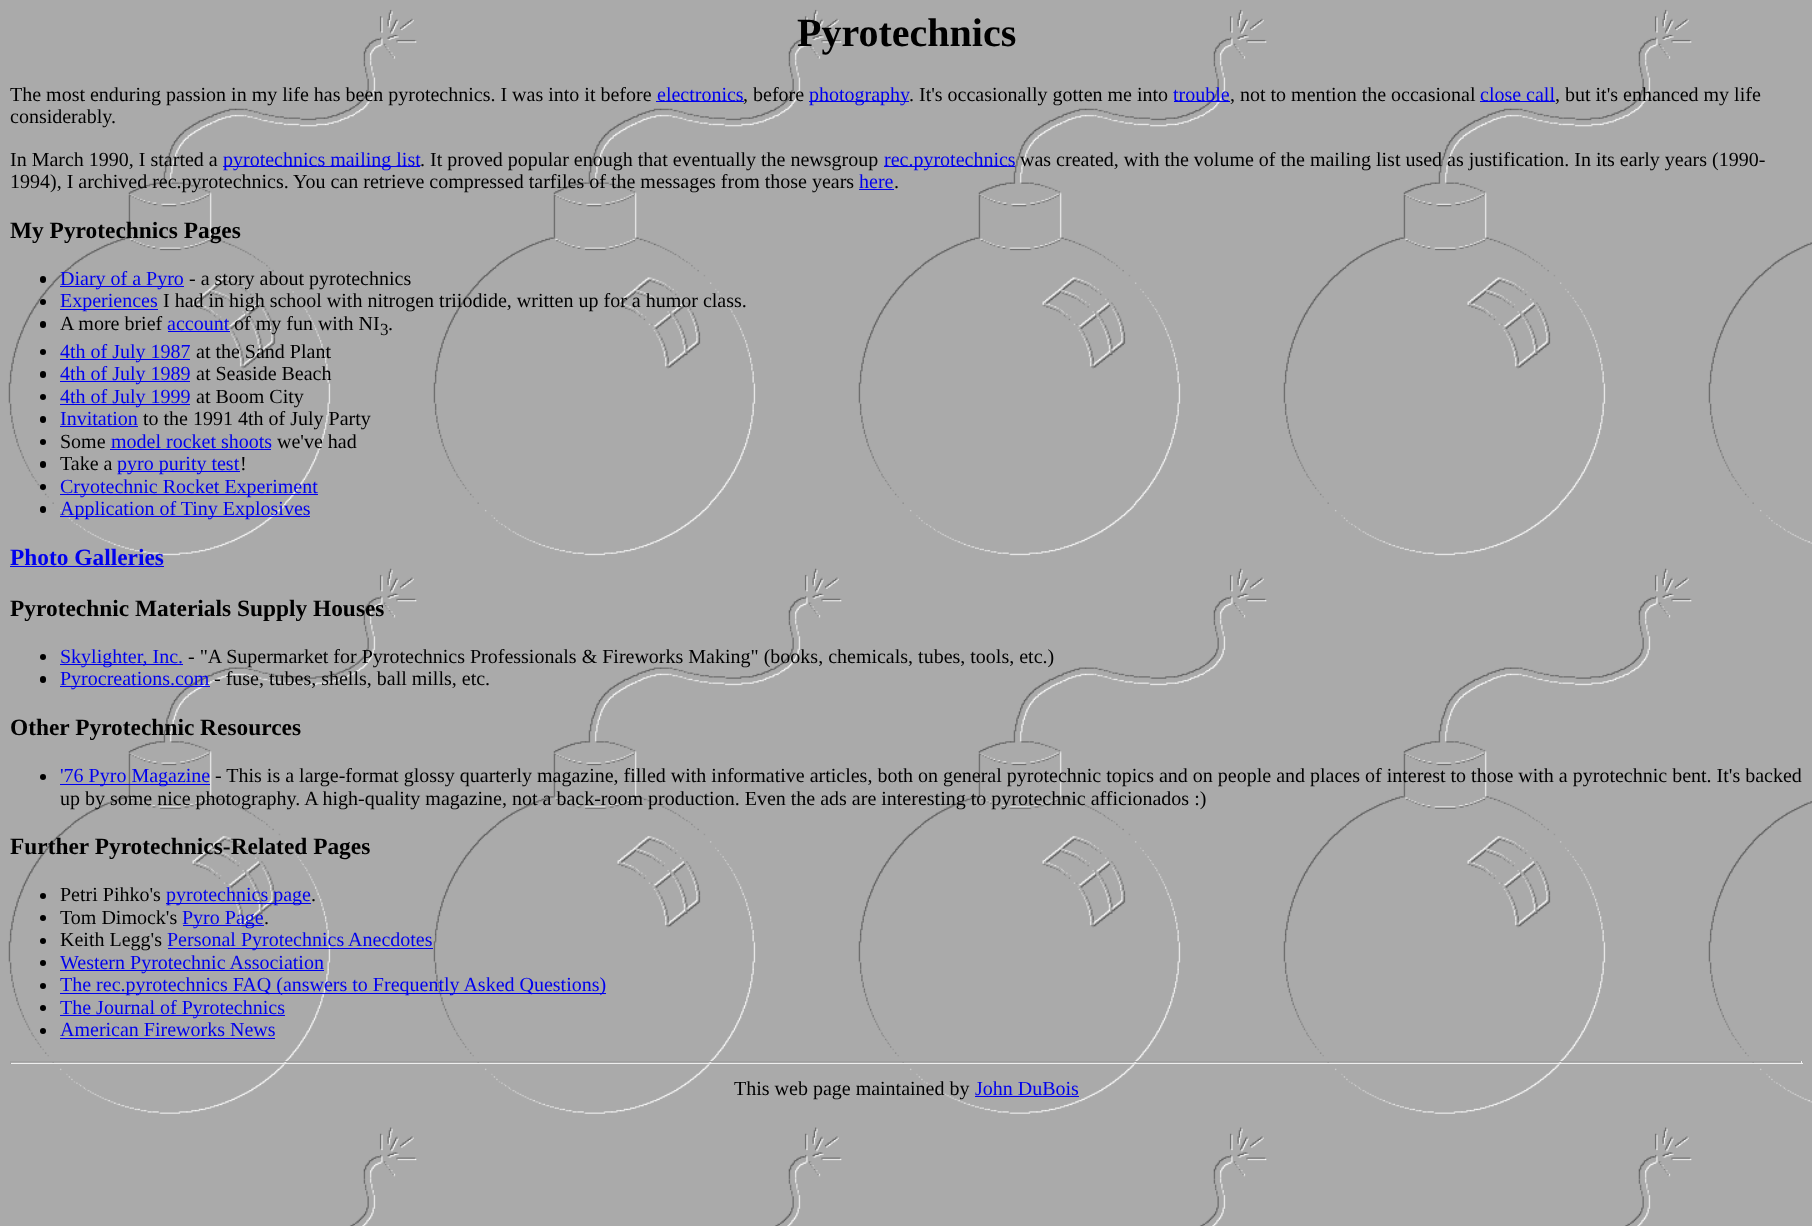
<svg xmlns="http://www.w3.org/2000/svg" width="1812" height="1226">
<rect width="100%" height="100%" fill="#fff"/>
<image x="0" y="0" width="1812" height="1226" href="media/1.png"/>
<text x="797" y="46" style="font-family:Liberation Serif;font-size:40px;font-weight:bold;fill:#000">Pyrotechnics</text>
<text x="10" y="101" style="font-family:Liberation Serif;font-size:20px;fill:#000">The most enduring passion in my life has been pyrotechnics. I was into it before</text>
<rect x="656" y="101" width="88" height="1" fill="#00e"/>
<text x="657" y="101" style="font-family:Liberation Serif;font-size:20px;fill:#00e">electronics</text>
<text x="743" y="101" style="font-family:Liberation Serif;font-size:20px;fill:#000">, before</text>
<rect x="809" y="101" width="100" height="1" fill="#00e"/>
<text x="809" y="101" style="font-family:Liberation Serif;font-size:20px;fill:#00e">photography</text>
<text x="909" y="101" style="font-family:Liberation Serif;font-size:20px;fill:#000">. It's occasionally gotten me into</text>
<rect x="1174" y="101" width="56" height="1" fill="#00e"/>
<text x="1173" y="101" style="font-family:Liberation Serif;font-size:20px;fill:#00e">trouble</text>
<text x="1230" y="101" style="font-family:Liberation Serif;font-size:20px;fill:#000">, not to mention the occasional</text>
<rect x="1480" y="101" width="75" height="1" fill="#00e"/>
<text x="1480" y="101" style="font-family:Liberation Serif;font-size:20px;fill:#00e">close call</text>
<text x="1555" y="101" style="font-family:Liberation Serif;font-size:20px;fill:#000">, but it's enhanced my life</text>
<text x="10" y="123" style="font-family:Liberation Serif;font-size:20px;fill:#000">considerably.</text>
<text x="10" y="166" style="font-family:Liberation Serif;font-size:20px;fill:#000">In March 1990, I started a</text>
<rect x="223" y="166" width="197" height="1" fill="#00e"/>
<text x="223" y="166" style="font-family:Liberation Serif;font-size:20px;fill:#00e">pyrotechnics mailing list</text>
<text x="420" y="166" style="font-family:Liberation Serif;font-size:20px;fill:#000">. It proved popular enough that eventually the newsgroup</text>
<rect x="884" y="166" width="131" height="1" fill="#00e"/>
<text x="884" y="166" style="font-family:Liberation Serif;font-size:20px;fill:#00e">rec.pyrotechnics</text>
<text x="1020" y="166" style="font-family:Liberation Serif;font-size:20px;fill:#000">was created, with the volume of the mailing list used as justification. In its early years (1990-</text>
<text x="10" y="188" style="font-family:Liberation Serif;font-size:20px;fill:#000">1994), I archived rec.pyrotechnics. You can retrieve compressed tarfiles of the messages from those years</text>
<text x="859" y="188" style="font-family:Liberation Serif;font-size:20px;fill:#00e">here</text>
<rect x="859" y="189" width="35" height="1" fill="#00e"/>
<text x="894" y="188" style="font-family:Liberation Serif;font-size:20px;fill:#000">.</text>
<text x="10" y="238" style="font-family:Liberation Serif;font-size:23.4px;font-weight:bold;fill:#000">My Pyrotechnics Pages</text>
<rect x="40" y="276" width="6" height="7" rx="3" fill="#000"/>
<rect x="60" y="286" width="124" height="1" fill="#00e"/>
<text x="60" y="285" style="font-family:Liberation Serif;font-size:20px;fill:#00e">Diary of a Pyro</text>
<text x="189" y="285" style="font-family:Liberation Serif;font-size:20px;fill:#000">- a story about pyrotechnics</text>
<circle cx="43" cy="302" r="3" fill="#000"/>
<rect x="60" y="309" width="98" height="1" fill="#00e"/>
<text x="60" y="307" style="font-family:Liberation Serif;font-size:20px;fill:#00e">Experiences</text>
<text x="163" y="307" style="font-family:Liberation Serif;font-size:20px;fill:#000">I had in high school with nitrogen triiodide, written up for a humor class.</text>
<rect x="40" y="321" width="6" height="7" rx="3" fill="#000"/>
<text x="60" y="330" style="font-family:Liberation Serif;font-size:20px;fill:#000">A more brief</text>
<text x="167" y="330" style="font-family:Liberation Serif;font-size:20px;fill:#00e">account</text>
<rect x="168" y="331" width="62" height="1" fill="#00e"/>
<text x="234" y="330" style="font-family:Liberation Serif;font-size:20px;fill:#000">of my fun with NI</text>
<text x="380" y="335" style="font-family:Liberation Serif;font-size:17px;fill:#000">3</text>
<text x="388" y="330" style="font-family:Liberation Serif;font-size:20px;fill:#000">.</text>
<circle cx="43" cy="352" r="3" fill="#000"/>
<rect x="60" y="359" width="130" height="1" fill="#00e"/>
<text x="60" y="358" style="font-family:Liberation Serif;font-size:20px;fill:#00e">4th of July 1987</text>
<text x="196" y="358" style="font-family:Liberation Serif;font-size:20px;fill:#000">at the Sand Plant</text>
<rect x="40" y="371" width="6" height="7" rx="3" fill="#000"/>
<rect x="60" y="381" width="130" height="1" fill="#00e"/>
<text x="60" y="380" style="font-family:Liberation Serif;font-size:20px;fill:#00e">4th of July 1989</text>
<text x="196" y="380" style="font-family:Liberation Serif;font-size:20px;fill:#000">at Seaside Beach</text>
<circle cx="43" cy="397" r="3" fill="#000"/>
<rect x="60" y="404" width="130" height="1" fill="#00e"/>
<text x="60" y="403" style="font-family:Liberation Serif;font-size:20px;fill:#00e">4th of July 1999</text>
<text x="196" y="403" style="font-family:Liberation Serif;font-size:20px;fill:#000">at Boom City</text>
<rect x="40" y="416" width="6" height="7" rx="3" fill="#000"/>
<text x="60" y="425" style="font-family:Liberation Serif;font-size:20px;fill:#00e">Invitation</text>
<rect x="60" y="426" width="78" height="1" fill="#00e"/>
<text x="143" y="425" style="font-family:Liberation Serif;font-size:20px;fill:#000">to the 1991 4th of July Party</text>
<circle cx="43" cy="442" r="3" fill="#000"/>
<text x="60" y="448" style="font-family:Liberation Serif;font-size:20px;fill:#000">Some</text>
<text x="111" y="448" style="font-family:Liberation Serif;font-size:20px;fill:#00e">model rocket shoots</text>
<rect x="110" y="449" width="161" height="1" fill="#00e"/>
<text x="277" y="448" style="font-family:Liberation Serif;font-size:20px;fill:#000">we've had</text>
<rect x="40" y="461" width="6" height="7" rx="3" fill="#000"/>
<text x="60" y="470" style="font-family:Liberation Serif;font-size:20px;fill:#000">Take a</text>
<rect x="118" y="471" width="122" height="1" fill="#00e"/>
<text x="117" y="470" style="font-family:Liberation Serif;font-size:20px;fill:#00e">pyro purity test</text>
<text x="240" y="470" style="font-family:Liberation Serif;font-size:20px;fill:#000">!</text>
<circle cx="43" cy="487" r="3" fill="#000"/>
<rect x="60" y="494" width="258" height="1" fill="#00e"/>
<text x="60" y="493" style="font-family:Liberation Serif;font-size:20px;fill:#00e">Cryotechnic Rocket Experiment</text>
<rect x="40" y="506" width="6" height="7" rx="3" fill="#000"/>
<rect x="60" y="516" width="250" height="1" fill="#00e"/>
<text x="60" y="515" style="font-family:Liberation Serif;font-size:20px;fill:#00e">Application of Tiny Explosives</text>
<text x="10" y="565" style="font-family:Liberation Serif;font-size:23.4px;font-weight:bold;fill:#00e">Photo Galleries</text>
<rect x="10" y="566" width="154" height="1" fill="#00e"/>
<text x="10" y="616" style="font-family:Liberation Serif;font-size:23.4px;font-weight:bold;fill:#000">Pyrotechnic Materials Supply Houses</text>
<circle cx="43" cy="657" r="3" fill="#000"/>
<rect x="60" y="664" width="123" height="1" fill="#00e"/>
<text x="60" y="663" style="font-family:Liberation Serif;font-size:20px;fill:#00e">Skylighter, Inc.</text>
<text x="188" y="663" style="font-family:Liberation Serif;font-size:20px;fill:#000">- "A Supermarket for Pyrotechnics Professionals &amp; Fireworks Making" (books, chemicals, tubes, tools, etc.)</text>
<rect x="40" y="676" width="6" height="7" rx="3" fill="#000"/>
<rect x="60" y="686" width="150" height="1" fill="#00e"/>
<text x="60" y="685" style="font-family:Liberation Serif;font-size:20px;fill:#00e">Pyrocreations.com</text>
<text x="214" y="685" style="font-family:Liberation Serif;font-size:20px;fill:#000">- fuse, tubes, shells, ball mills, etc.</text>
<text x="10" y="735" style="font-family:Liberation Serif;font-size:23.4px;font-weight:bold;fill:#000">Other Pyrotechnic Resources</text>
<circle cx="43" cy="777" r="3" fill="#000"/>
<rect x="60" y="784" width="150" height="1" fill="#00e"/>
<text x="60" y="782" style="font-family:Liberation Serif;font-size:20px;fill:#00e">'76 Pyro Magazine</text>
<text x="215" y="782" style="font-family:Liberation Serif;font-size:20px;fill:#000">- This is a large-format glossy quarterly magazine, filled with informative articles, both on general pyrotechnic topics and on people and places of interest to those with a pyrotechnic bent. It's backed</text>
<text x="60" y="805" style="font-family:Liberation Serif;font-size:20px;fill:#000">up by some nice photography. A high-quality magazine, not a back-room production. Even the ads are interesting to pyrotechnic afficionados :)</text>
<text x="10" y="854" style="font-family:Liberation Serif;font-size:23.4px;font-weight:bold;fill:#000">Further Pyrotechnics-Related Pages</text>
<circle cx="43" cy="896" r="3" fill="#000"/>
<text x="60" y="901" style="font-family:Liberation Serif;font-size:20px;fill:#000">Petri Pihko's</text>
<rect x="166" y="903" width="145" height="1" fill="#00e"/>
<text x="166" y="901" style="font-family:Liberation Serif;font-size:20px;fill:#00e">pyrotechnics page</text>
<text x="311" y="901" style="font-family:Liberation Serif;font-size:20px;fill:#000">.</text>
<circle cx="43" cy="918" r="3" fill="#000"/>
<text x="60" y="924" style="font-family:Liberation Serif;font-size:20px;fill:#000">Tom Dimock's</text>
<rect x="183" y="925" width="81" height="1" fill="#00e"/>
<text x="182" y="924" style="font-family:Liberation Serif;font-size:20px;fill:#00e">Pyro Page</text>
<text x="264" y="924" style="font-family:Liberation Serif;font-size:20px;fill:#000">.</text>
<circle cx="43" cy="941" r="3" fill="#000"/>
<text x="60" y="946" style="font-family:Liberation Serif;font-size:20px;fill:#000">Keith Legg's</text>
<rect x="168" y="948" width="265" height="1" fill="#00e"/>
<text x="167" y="946" style="font-family:Liberation Serif;font-size:20px;fill:#00e">Personal Pyrotechnics Anecdotes</text>
<circle cx="43" cy="963" r="3" fill="#000"/>
<rect x="60" y="970" width="264" height="1" fill="#00e"/>
<text x="60" y="969" style="font-family:Liberation Serif;font-size:20px;fill:#00e">Western Pyrotechnic Association</text>
<circle cx="43" cy="986" r="3" fill="#000"/>
<rect x="60" y="993" width="546" height="1" fill="#00e"/>
<text x="60" y="991" style="font-family:Liberation Serif;font-size:20px;fill:#00e">The rec.pyrotechnics FAQ (answers to Frequently Asked Questions)</text>
<circle cx="43" cy="1008" r="3" fill="#000"/>
<rect x="60" y="1015" width="225" height="1" fill="#00e"/>
<text x="60" y="1014" style="font-family:Liberation Serif;font-size:20px;fill:#00e">The Journal of Pyrotechnics</text>
<circle cx="43" cy="1031" r="3" fill="#000"/>
<text x="60" y="1036" style="font-family:Liberation Serif;font-size:20px;fill:#00e">American Fireworks News</text>
<rect x="60" y="1038" width="215" height="1" fill="#00e"/>
<rect x="10" y="1061" width="1793" height="1" fill="#9f9f9f"/>
<rect x="1801" y="1061" width="1" height="3" fill="#eee"/>
<rect x="10" y="1063" width="1793" height="1" fill="#eee"/>
<rect x="10" y="1061" width="1" height="3" fill="#9f9f9f"/>
<text x="734" y="1095" style="font-family:Liberation Serif;font-size:20px;fill:#000">This web page maintained by</text>
<text x="975" y="1095" style="font-family:Liberation Serif;font-size:20px;fill:#00e">John DuBois</text>
<rect x="975" y="1096" width="104" height="1" fill="#00e"/>
</svg>
